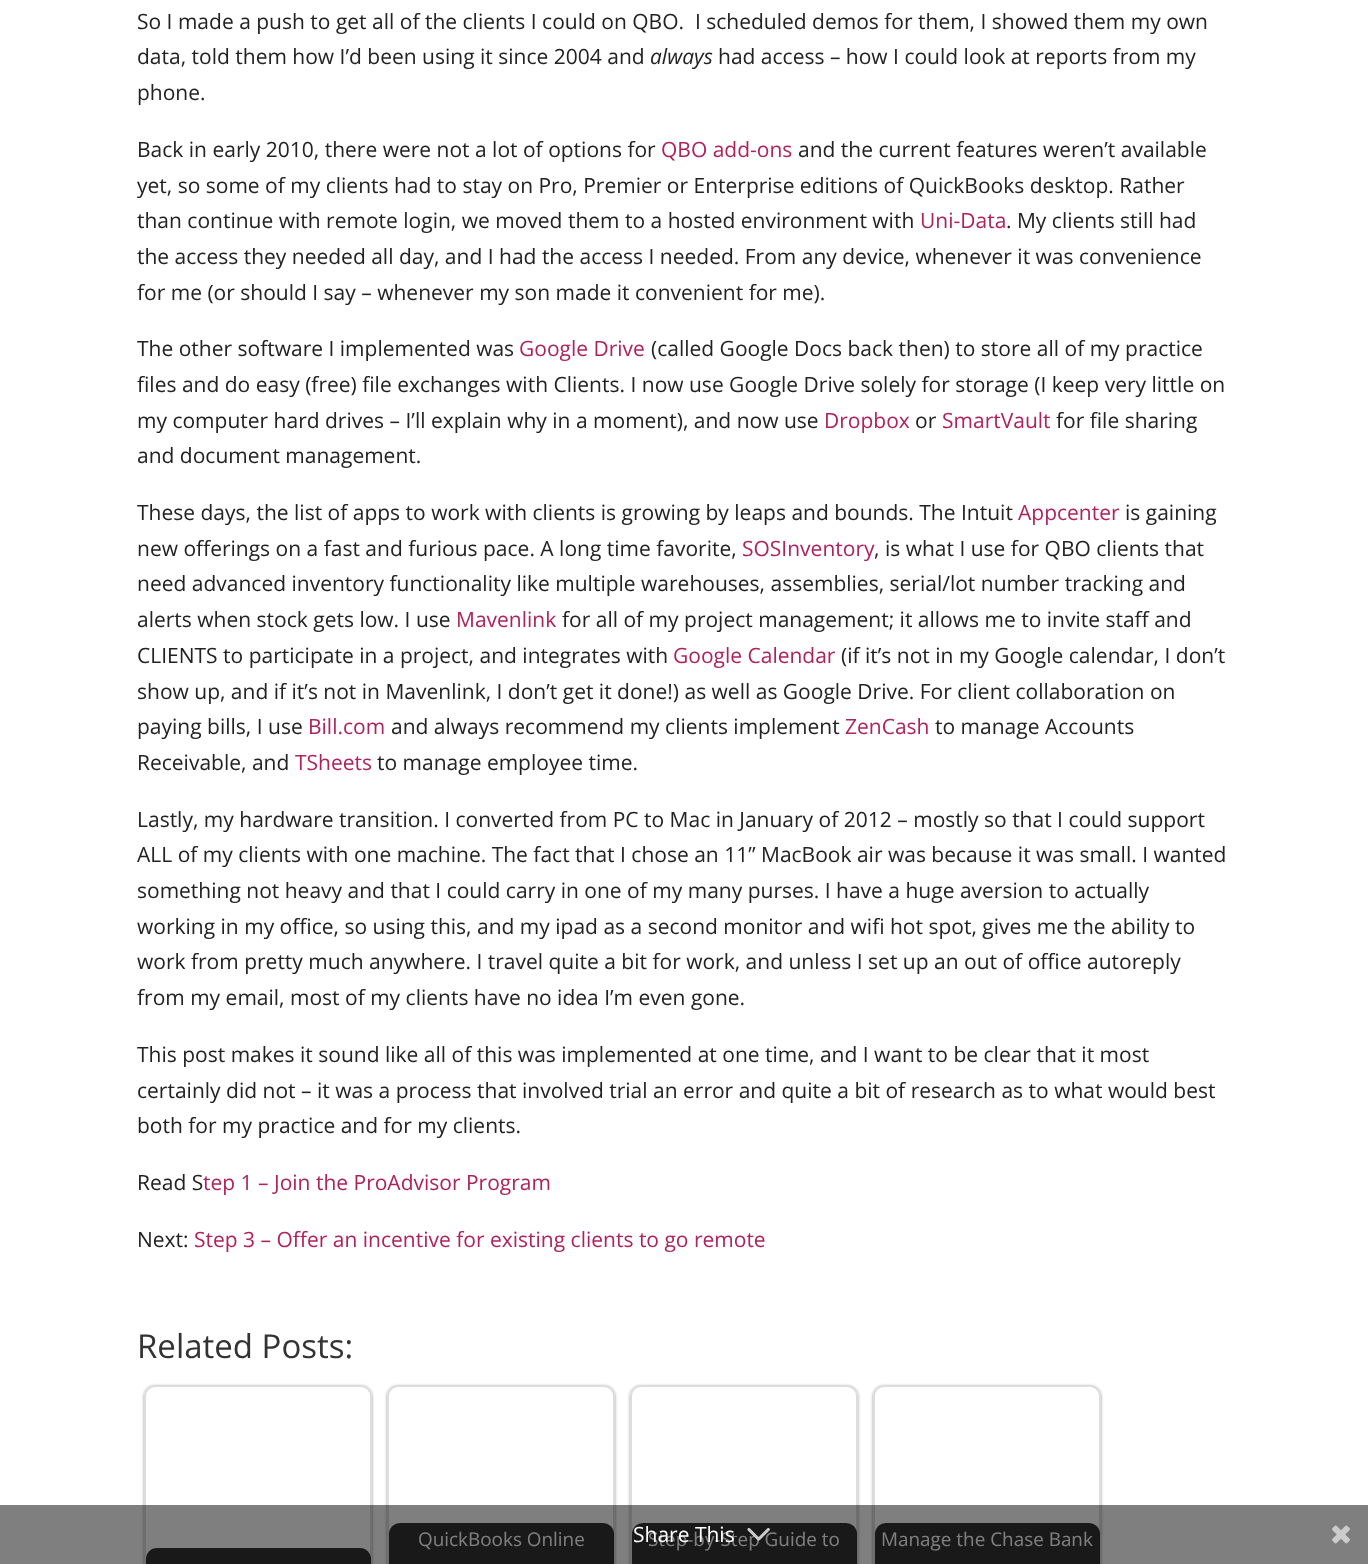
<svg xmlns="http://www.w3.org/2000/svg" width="1368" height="1564">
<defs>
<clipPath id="clip1"><path d="M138 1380h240v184h-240zm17 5h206c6 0 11 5 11 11v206c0 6-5 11-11 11h-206c-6 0-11-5-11-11v-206c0-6 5-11 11-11z" clip-rule="evenodd"/></clipPath>
<clipPath id="clip2"><path d="M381 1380h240v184h-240zm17 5h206c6 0 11 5 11 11v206c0 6-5 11-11 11h-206c-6 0-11-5-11-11v-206c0-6 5-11 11-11z" clip-rule="evenodd"/></clipPath>
<clipPath id="clip3"><path d="M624 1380h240v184h-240zm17 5h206c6 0 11 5 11 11v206c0 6-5 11-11 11h-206c-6 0-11-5-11-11v-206c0-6 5-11 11-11z" clip-rule="evenodd"/></clipPath>
<clipPath id="clip4"><path d="M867 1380h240v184h-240zm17 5h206c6 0 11 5 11 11v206c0 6-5 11-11 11h-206c-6 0-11-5-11-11v-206c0-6 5-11 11-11z" clip-rule="evenodd"/></clipPath>
</defs>
<rect width="100%" height="100%" fill="#fff"/>
<text x="137" y="29" style="font-family:Open Sans;font-size:21px;fill:#222" xml:space="preserve">So I made a push to get all of the clients I could on QBO.  I scheduled demos for them, I showed them my own</text>
<text x="137" y="64" style="font-family:Open Sans;font-size:21px;fill:#222">data, told them how I’d been using it since 2004 and</text>
<text x="650" y="64" style="font-family:Open Sans;font-size:21px;font-style:italic;fill:#222">always</text>
<text x="718" y="64" style="font-family:Open Sans;font-size:21px;fill:#222">had access – how I could look at reports from my</text>
<text x="137" y="100" style="font-family:Open Sans;font-size:21px;fill:#222">phone.</text>
<text x="137" y="157" style="font-family:Open Sans;font-size:21px;fill:#222">Back in early 2010, there were not a lot of options for</text>
<text x="661" y="157" style="font-family:Open Sans;font-size:21px;fill:#ad235f">QBO add-ons</text>
<text x="798" y="157" style="font-family:Open Sans;font-size:21px;fill:#222">and the current features weren’t available</text>
<text x="137" y="193" style="font-family:Open Sans;font-size:21px;fill:#222">yet, so some of my clients had to stay on Pro, Premier or Enterprise editions of QuickBooks desktop. Rather</text>
<text x="137" y="228" style="font-family:Open Sans;font-size:21px;fill:#222">than continue with remote login, we moved them to a hosted environment with</text>
<text x="920" y="228" style="font-family:Open Sans;font-size:21px;fill:#ad235f">Uni-Data</text>
<text x="1006" y="228" style="font-family:Open Sans;font-size:21px;fill:#222">. My clients still had</text>
<text x="137" y="264" style="font-family:Open Sans;font-size:21px;fill:#222">the access they needed all day, and I had the access I needed. From any device, whenever it was convenience</text>
<text x="137" y="300" style="font-family:Open Sans;font-size:21px;fill:#222">for me (or should I say – whenever my son made it convenient for me).</text>
<text x="137" y="356" style="font-family:Open Sans;font-size:21px;fill:#222">The other software I implemented was</text>
<text x="519" y="356" style="font-family:Open Sans;font-size:21px;fill:#ad235f">Google Drive</text>
<text x="651" y="356" style="font-family:Open Sans;font-size:21px;fill:#222">(called Google Docs back then) to store all of my practice</text>
<text x="137" y="392" style="font-family:Open Sans;font-size:21px;fill:#222">files and do easy (free) file exchanges with Clients. I now use Google Drive solely for storage (I keep very little on</text>
<text x="137" y="428" style="font-family:Open Sans;font-size:21px;fill:#222">my computer hard drives – I’ll explain why in a moment), and now use</text>
<text x="824" y="428" style="font-family:Open Sans;font-size:21px;fill:#ad235f">Dropbox</text>
<text x="915" y="428" style="font-family:Open Sans;font-size:21px;fill:#222">or</text>
<text x="942" y="428" style="font-family:Open Sans;font-size:21px;fill:#ad235f">SmartVault</text>
<text x="1056" y="428" style="font-family:Open Sans;font-size:21px;fill:#222">for file sharing</text>
<text x="137" y="463" style="font-family:Open Sans;font-size:21px;fill:#222">and document management.</text>
<text x="137" y="520" style="font-family:Open Sans;font-size:21px;fill:#222">These days, the list of apps to work with clients is growing by leaps and bounds. The Intuit</text>
<text x="1018" y="520" style="font-family:Open Sans;font-size:21px;fill:#ad235f">Appcenter</text>
<text x="1125" y="520" style="font-family:Open Sans;font-size:21px;fill:#222">is gaining</text>
<text x="137" y="556" style="font-family:Open Sans;font-size:21px;fill:#222">new offerings on a fast and furious pace. A long time favorite,</text>
<text x="742" y="556" style="font-family:Open Sans;font-size:21px;fill:#ad235f">SOSInventory</text>
<text x="874" y="556" style="font-family:Open Sans;font-size:21px;fill:#222">, is what I use for QBO clients that</text>
<text x="137" y="591" style="font-family:Open Sans;font-size:21px;fill:#222">need advanced inventory functionality like multiple warehouses, assemblies, serial/lot number tracking and</text>
<text x="137" y="627" style="font-family:Open Sans;font-size:21px;fill:#222">alerts when stock gets low. I use</text>
<text x="456" y="627" style="font-family:Open Sans;font-size:21px;fill:#ad235f">Mavenlink</text>
<text x="562" y="627" style="font-family:Open Sans;font-size:21px;fill:#222">for all of my project management; it allows me to invite staff and</text>
<text x="137" y="663" style="font-family:Open Sans;font-size:21px;fill:#222">CLIENTS to participate in a project, and integrates with</text>
<text x="673" y="663" style="font-family:Open Sans;font-size:21px;fill:#ad235f">Google Calendar</text>
<text x="841" y="663" style="font-family:Open Sans;font-size:21px;fill:#222">(if it’s not in my Google calendar, I don’t</text>
<text x="137" y="699" style="font-family:Open Sans;font-size:21px;fill:#222">show up, and if it’s not in Mavenlink, I don’t get it done!) as well as Google Drive. For client collaboration on</text>
<text x="137" y="734" style="font-family:Open Sans;font-size:21px;fill:#222">paying bills, I use</text>
<text x="308" y="734" style="font-family:Open Sans;font-size:21px;fill:#ad235f">Bill.com</text>
<text x="391" y="734" style="font-family:Open Sans;font-size:21px;fill:#222">and always recommend my clients implement</text>
<text x="845" y="734" style="font-family:Open Sans;font-size:21px;fill:#ad235f">ZenCash</text>
<text x="935" y="734" style="font-family:Open Sans;font-size:21px;fill:#222">to manage Accounts</text>
<text x="137" y="770" style="font-family:Open Sans;font-size:21px;fill:#222">Receivable, and</text>
<text x="295" y="770" style="font-family:Open Sans;font-size:21px;fill:#ad235f">TSheets</text>
<text x="377" y="770" style="font-family:Open Sans;font-size:21px;fill:#222">to manage employee time.</text>
<text x="137" y="827" style="font-family:Open Sans;font-size:21px;fill:#222">Lastly, my hardware transition. I converted from PC to Mac in January of 2012 – mostly so that I could support</text>
<text x="137" y="862" style="font-family:Open Sans;font-size:21px;fill:#222">ALL of my clients with one machine. The fact that I chose an 11” MacBook air was because it was small. I wanted</text>
<text x="137" y="898" style="font-family:Open Sans;font-size:21px;fill:#222">something not heavy and that I could carry in one of my many purses. I have a huge aversion to actually</text>
<text x="137" y="934" style="font-family:Open Sans;font-size:21px;fill:#222">working in my office, so using this, and my ipad as a second monitor and wifi hot spot, gives me the ability to</text>
<text x="137" y="969" style="font-family:Open Sans;font-size:21px;fill:#222">work from pretty much anywhere. I travel quite a bit for work, and unless I set up an out of office autoreply</text>
<text x="137" y="1005" style="font-family:Open Sans;font-size:21px;fill:#222">from my email, most of my clients have no idea I’m even gone.</text>
<text x="137" y="1062" style="font-family:Open Sans;font-size:21px;fill:#222">This post makes it sound like all of this was implemented at one time, and I want to be clear that it most</text>
<text x="137" y="1098" style="font-family:Open Sans;font-size:21px;fill:#222">certainly did not – it was a process that involved trial an error and quite a bit of research as to what would best</text>
<text x="137" y="1133" style="font-family:Open Sans;font-size:21px;fill:#222">both for my practice and for my clients.</text>
<text x="137" y="1190" style="font-family:Open Sans;font-size:21px;fill:#222">Read S</text>
<text x="203" y="1190" style="font-family:Open Sans;font-size:21px;fill:#ad235f">tep 1 – Join the ProAdvisor Program</text>
<text x="137" y="1247" style="font-family:Open Sans;font-size:21px;fill:#222">Next:</text>
<text x="194" y="1247" style="font-family:Open Sans;font-size:21px;fill:#ad235f">Step 3 – Offer an incentive for existing clients to go remote</text>
<text x="137" y="1358" style="font-family:Open Sans;font-size:33px;fill:#333">Related Posts:</text>
<g clip-path="url(#clip1)">
<rect x="144" y="1386" width="228" height="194" rx="11" fill="#00000066" filter="blur(1.5px)"/>
</g>
<rect x="145" y="1386" width="226" height="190" rx="10" fill="none" stroke="#ddd" stroke-width="2"/>
<rect x="146" y="1548" width="225" height="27" rx="11" fill="#000000cc"/>
<g clip-path="url(#clip2)">
<rect x="387" y="1386" width="228" height="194" rx="11" fill="#00000066" filter="blur(1.5px)"/>
</g>
<rect x="388" y="1386" width="226" height="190" rx="10" fill="none" stroke="#ddd" stroke-width="2"/>
<rect x="389" y="1523" width="225" height="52" rx="11" fill="#000000cc"/>
<text x="418" y="1546" style="font-family:Open Sans;font-size:18.9px;fill:#fff">QuickBooks Online</text>
<g clip-path="url(#clip3)">
<rect x="630" y="1386" width="228" height="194" rx="11" fill="#00000066" filter="blur(1.5px)"/>
</g>
<rect x="631" y="1386" width="226" height="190" rx="10" fill="none" stroke="#ddd" stroke-width="2"/>
<rect x="632" y="1523" width="225" height="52" rx="11" fill="#000000cc"/>
<text x="648" y="1546" style="font-family:Open Sans;font-size:18.9px;fill:#fff">Step-by-Step Guide to</text>
<g clip-path="url(#clip4)">
<rect x="873" y="1386" width="228" height="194" rx="11" fill="#00000066" filter="blur(1.5px)"/>
</g>
<rect x="874" y="1386" width="226" height="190" rx="10" fill="none" stroke="#ddd" stroke-width="2"/>
<rect x="875" y="1523" width="225" height="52" rx="11" fill="#000000cc"/>
<text x="881" y="1546" style="font-family:Open Sans;font-size:18.9px;fill:#fff">Manage the Chase Bank</text>
<rect y="1505" width="1368" height="59" fill="#00000080"/>
<text x="633" y="1542" style="font-family:Open Sans;font-size:21px;fill:#fff">Share This</text>
<image x="747" y="1528" width="23" height="13" href="media/1.png"/>
<image x="1332" y="1525" width="18" height="19" href="media/2.png"/>
</svg>
